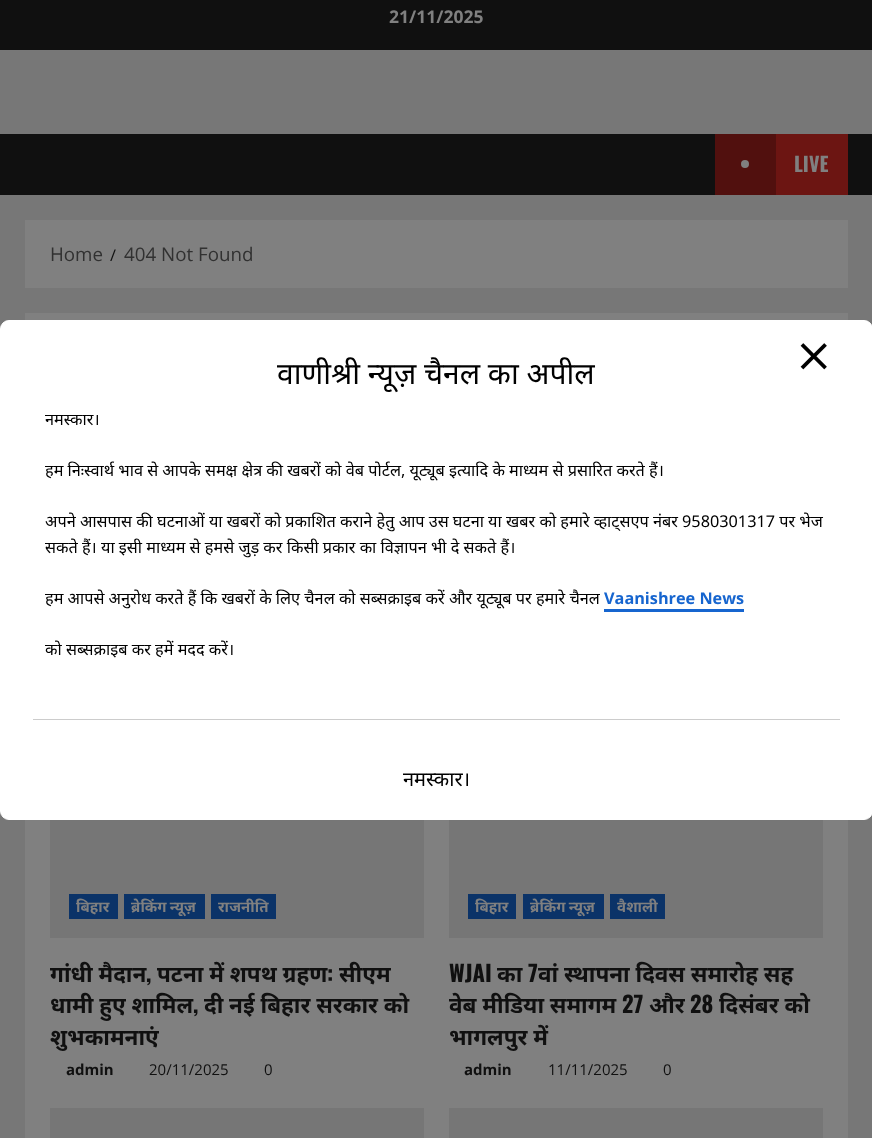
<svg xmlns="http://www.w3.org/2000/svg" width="872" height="1138">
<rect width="100%" height="100%" fill="#777"/>
<rect width="872" height="50" fill="#101010"/>
<text x="389" y="23" style="font-family:Open Sans;font-size:17.5px;font-weight:bold;fill:#808080">21/11/2025</text>
<rect y="134" width="872" height="61" fill="#101010"/>
<rect x="776" y="134" width="72" height="61" fill="#6c1512"/>
<rect x="715" y="134" width="61" height="61" fill="#51100e"/>
<circle cx="745" cy="164" r="4" fill="#808080"/>
<text x="794" y="172" style="font-family:Oswald;font-size:20px;font-weight:bold;fill:#808080">LIVE</text>
<rect x="25" y="220" width="823" height="68" fill="#808080"/>
<text x="50" y="261" style="font-family:Open Sans;font-size:18.75px;fill:#313131">Home</text>
<text x="110" y="261" style="font-family:Open Sans;font-size:16.25px;fill:#101010">/</text>
<text x="124" y="261" style="font-family:Open Sans;font-size:18.75px;fill:#313131">404 Not Found</text>
<rect x="25" y="313" width="823" height="7" fill="#808080"/>
<rect x="25" y="820" width="823" height="318" fill="#808080"/>
<rect x="50" y="820" width="374" height="118" fill="#767676"/>
<rect x="69" y="894" width="49" height="25" fill="#0b3368"/>
<text x="76" y="912" style="font-family:Noto Sans;font-size:15px;font-weight:bold;letter-spacing:0.1px;fill:#808080">बिहार</text>
<rect x="124" y="894" width="81" height="25" fill="#0b3368"/>
<text x="131" y="912" word-spacing="-1" style="font-family:Noto Sans;font-size:15px;font-weight:bold;letter-spacing:0.1px;fill:#808080">ब्रेकिंग न्यूज़</text>
<rect x="211" y="894" width="65" height="25" fill="#0b3368"/>
<text x="218" y="912" style="font-family:Noto Sans;font-size:15px;font-weight:bold;letter-spacing:0.1px;fill:#808080">राजनीति</text>
<text x="50" y="982" style="font-family:Noto Sans;font-size:22.5px;font-weight:bold;fill:#101010">गांधी मैदान</text>
<text x="157" y="982" style="font-family:Noto Sans;font-size:22.5px;font-weight:bold;fill:#101010">पटना में शपथ ग्रहण</text>
<text x="327" y="982" style="font-family:Oswald;font-size:22.5px;font-weight:bold;fill:#101010">:</text>
<text x="339" y="982" style="font-family:Noto Sans;font-size:22.5px;font-weight:bold;fill:#101010">सीएम</text>
<text x="146" y="982" style="font-family:Oswald;font-size:22.5px;font-weight:bold;fill:#101010">,</text>
<text x="50" y="1013" style="font-family:Noto Sans;font-size:22.5px;font-weight:bold;fill:#101010">धामी हुए शामिल</text>
<text x="193" y="1013" style="font-family:Oswald;font-size:22.5px;font-weight:bold;fill:#101010">,</text>
<text x="204" y="1013" style="font-family:Noto Sans;font-size:22.5px;font-weight:bold;fill:#101010">दी नई बिहार सरकार को</text>
<text x="50" y="1045" style="font-family:Noto Sans;font-size:22.5px;font-weight:bold;fill:#101010">शुभकामनाएं</text>
<text x="66" y="1075" style="font-family:Open Sans;font-size:15px;font-weight:bold;fill:#101010">admin</text>
<text x="149" y="1075" style="font-family:Open Sans;font-size:15px;fill:#101010">20/11/2025</text>
<text x="264" y="1075" style="font-family:Open Sans;font-size:15px;fill:#101010">0</text>
<rect x="449" y="820" width="374" height="118" fill="#767676"/>
<rect x="468" y="894" width="48" height="25" fill="#0b3368"/>
<text x="475" y="912" style="font-family:Noto Sans;font-size:15px;font-weight:bold;letter-spacing:0.1px;fill:#808080">बिहार</text>
<rect x="523" y="894" width="81" height="25" fill="#0b3368"/>
<text x="530" y="912" word-spacing="-1" style="font-family:Noto Sans;font-size:15px;font-weight:bold;letter-spacing:0.1px;fill:#808080">ब्रेकिंग न्यूज़</text>
<rect x="610" y="894" width="55" height="25" fill="#0b3368"/>
<text x="617" y="912" style="font-family:Noto Sans;font-size:15px;font-weight:bold;letter-spacing:0.1px;fill:#808080">वैशाली</text>
<text x="449" y="982" style="font-family:Oswald;font-size:22.5px;font-weight:bold;fill:#101010">WJAI</text>
<text x="528" y="982" style="font-family:Oswald;font-size:22.5px;font-weight:bold;fill:#101010">7</text>
<text x="538" y="982" style="font-family:Noto Sans;font-size:22.5px;font-weight:bold;fill:#101010">वां स्थापना दिवस समारोह सह</text>
<text x="497" y="982" style="font-family:Noto Sans;font-size:22.5px;font-weight:bold;fill:#101010">का</text>
<text x="449" y="1013" style="font-family:Noto Sans;font-size:22.5px;font-weight:bold;fill:#101010">वेब मीडिया समागम</text>
<text x="622" y="1013" style="font-family:Oswald;font-size:22.5px;font-weight:bold;fill:#101010">27</text>
<text x="649" y="1013" style="font-family:Noto Sans;font-size:22.5px;font-weight:bold;fill:#101010">और</text>
<text x="690" y="1013" style="font-family:Oswald;font-size:22.5px;font-weight:bold;fill:#101010">28</text>
<text x="719" y="1013" style="font-family:Noto Sans;font-size:22.5px;font-weight:bold;fill:#101010">दिसंबर को</text>
<text x="449" y="1045" style="font-family:Noto Sans;font-size:22.5px;font-weight:bold;fill:#101010">भागलपुर में</text>
<text x="464" y="1075" style="font-family:Open Sans;font-size:15px;font-weight:bold;fill:#101010">admin</text>
<text x="548" y="1075" style="font-family:Open Sans;font-size:15px;fill:#101010">11/11/2025</text>
<text x="663" y="1075" style="font-family:Open Sans;font-size:15px;fill:#101010">0</text>
<rect x="50" y="1108" width="374" height="30" fill="#767676"/>
<rect x="449" y="1108" width="374" height="30" fill="#767676"/>
<rect x="0.5" y="320.5" width="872" height="499" rx="8.5" fill="#fff" stroke="#fff"/>
<text x="277" y="384" style="font-family:Noto Sans;font-size:30px;fill:#000">वाणीश्री न्यूज़ चैनल का अपील</text>
<image x="800" y="343" width="27" height="27" href="media/1.png"/>
<text x="45" y="425" style="font-family:Noto Sans;font-size:16.25px;fill:#000">नमस्कार।</text>
<text x="45" y="476" style="font-family:Noto Sans;font-size:16.25px;fill:#000">हम निःस्वार्थ भाव से आपके समक्ष क्षेत्र की खबरों को वेब पोर्टल, यूट्यूब इत्यादि के माध्यम से प्रसारित करते हैं।</text>
<text x="45" y="527" style="font-family:Noto Sans;font-size:16.25px;fill:#000">अपने आसपास की घटनाओं या खबरों को प्रकाशित कराने हेतु आप उस घटना या खबर को हमारे व्हाट्सएप नंबर 9580301317 पर भेज</text>
<text x="45" y="553" style="font-family:Noto Sans;font-size:16.25px;fill:#000">सकते हैं। या इसी माध्यम से हमसे जुड़ कर किसी प्रकार का विज्ञापन भी दे सकते हैं।</text>
<text x="45" y="604" style="font-family:Noto Sans;font-size:16.25px;fill:#000">हम आपसे अनुरोध करते हैं कि खबरों के लिए चैनल को सब्सक्राइब करें और यूट्यूब पर हमारे चैनल</text>
<text x="604" y="604" style="font-family:Open Sans;font-size:16.25px;font-weight:bold;fill:#1665cf">Vaanishree News</text>
<rect x="604" y="609" width="140" height="3" fill="#1665cf"/>
<text x="45" y="655" style="font-family:Noto Sans;font-size:16.25px;fill:#000">को सब्सक्राइब कर हमें मदद करें।</text>
<rect x="33" y="719" width="807" height="1" fill="#ccc"/>
<text x="403" y="786" style="font-family:Noto Sans;font-size:20px;fill:#000">नमस्कार।</text>
</svg>
